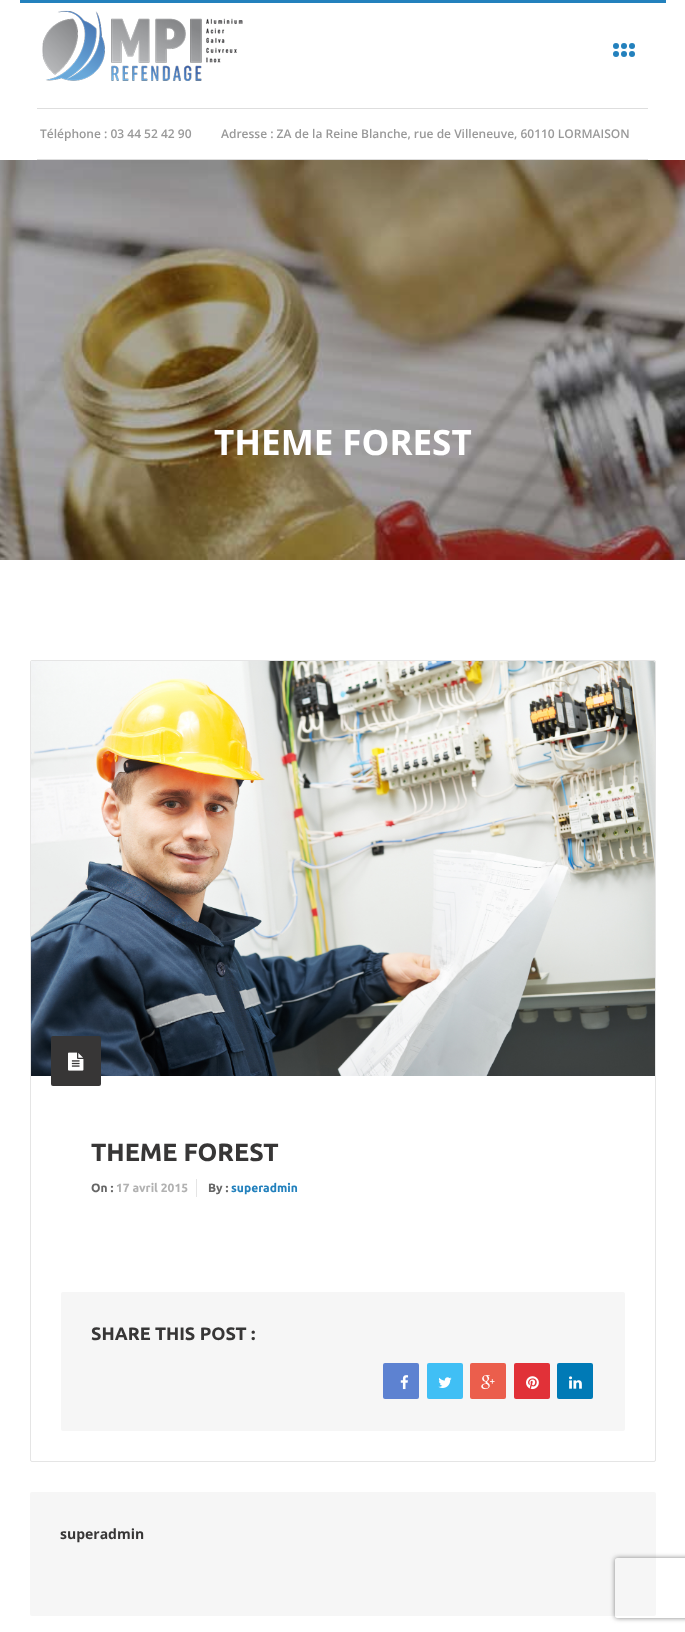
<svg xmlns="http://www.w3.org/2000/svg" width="685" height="1632">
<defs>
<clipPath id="clip1"><path d="M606 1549h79v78h-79zm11 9h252c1 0 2 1 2 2v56c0 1-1 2-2 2h-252c-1 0-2-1-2-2v-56c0-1 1-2 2-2z" clip-rule="evenodd"/></clipPath>
</defs>
<rect width="100%" height="100%" fill="#fff"/>
<rect x="20" width="646" height="3" fill="#2381bd"/>
<image x="42" y="10" width="201" height="71" href="media/1.png"/>
<circle cx="616" cy="46" r="3" fill="#2381bd"/>
<circle cx="624" cy="46" r="3" fill="#2381bd"/>
<circle cx="632" cy="46" r="3" fill="#2381bd"/>
<circle cx="616" cy="54" r="3" fill="#2381bd"/>
<circle cx="624" cy="54" r="3" fill="#2381bd"/>
<circle cx="632" cy="54" r="3" fill="#2381bd"/>
<rect x="37" y="108" width="611" height="1" fill="#dedede"/>
<rect x="37" y="159" width="611" height="1" fill="#dedede"/>
<text x="40" y="138" style="font-family:Open Sans;font-size:12px;font-weight:600;fill:#999">Téléphone : 03 44 52 42 90</text>
<text x="221" y="138" style="font-family:Open Sans;font-size:12px;font-weight:600;fill:#999">Adresse : ZA de la Reine Blanche, rue de Villeneuve, 60110 LORMAISON</text>
<image x="0" y="160" width="685" height="400" href="media/2.png"/>
<text x="214" y="455" style="font-family:Open Sans;font-size:35px;font-weight:bold;fill:#fff">THEME FOREST</text>
<rect x="30.5" y="660.5" width="625" height="801" rx="1.5" fill="none" stroke="#e5e5e5"/>
<image x="31" y="661" width="624" height="415" href="media/3.png"/>
<rect x="51" y="1036" width="50" height="50" rx="2" fill="#373636"/>
<image x="68" y="1052" width="16" height="19" href="media/4.png"/>
<text x="91" y="1161" style="font-family:Ubuntu;font-size:25px;font-weight:bold;fill:#373636">THEME FOREST</text>
<rect x="196" y="1179" width="1" height="18" fill="#e5e5e5"/>
<text x="91" y="1192" style="font-family:Ubuntu;font-size:12px;font-weight:bold;fill:#666">On :</text>
<text x="116" y="1192" style="font-family:Ubuntu;font-size:12px;font-weight:bold;fill:#b2b2b2">17 avril 2015</text>
<text x="208" y="1192" style="font-family:Ubuntu;font-size:12px;font-weight:bold;fill:#666">By :</text>
<text x="231" y="1192" style="font-family:Ubuntu;font-size:12px;font-weight:bold;fill:#2381bd">superadmin</text>
<rect x="61" y="1292" width="564" height="139" rx="2" fill="#f6f6f6"/>
<text x="91" y="1340" style="font-family:Ubuntu;font-size:18px;font-weight:bold;fill:#373636">SHARE THIS POST :</text>
<rect x="383" y="1363" width="36" height="36" rx="2" fill="#5d82d1"/>
<image x="400" y="1375" width="9" height="15" href="media/5.png"/>
<rect x="427" y="1363" width="36" height="36" rx="2" fill="#40bff5"/>
<image x="438" y="1377" width="14" height="11" href="media/6.png"/>
<rect x="470" y="1363" width="36" height="36" rx="2" fill="#eb5e4c"/>
<image x="481" y="1375" width="14" height="15" href="media/7.png"/>
<rect x="514" y="1363" width="36" height="36" rx="2" fill="#e13138"/>
<image x="526" y="1376" width="13" height="14" href="media/8.png"/>
<rect x="557" y="1363" width="36" height="36" rx="2" fill="#007ab6"/>
<image x="569" y="1376" width="13" height="13" href="media/9.png"/>
<rect x="30" y="1492" width="626" height="124" rx="2" fill="#f6f6f6"/>
<text x="60" y="1539" style="font-family:Open Sans;font-size:14px;font-weight:bold;fill:#373636">superadmin</text>
<g clip-path="url(#clip1)">
<rect x="615" y="1558" width="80" height="60" rx="2" fill="#808080" filter="blur(2.5px)"/>
</g>
</svg>
